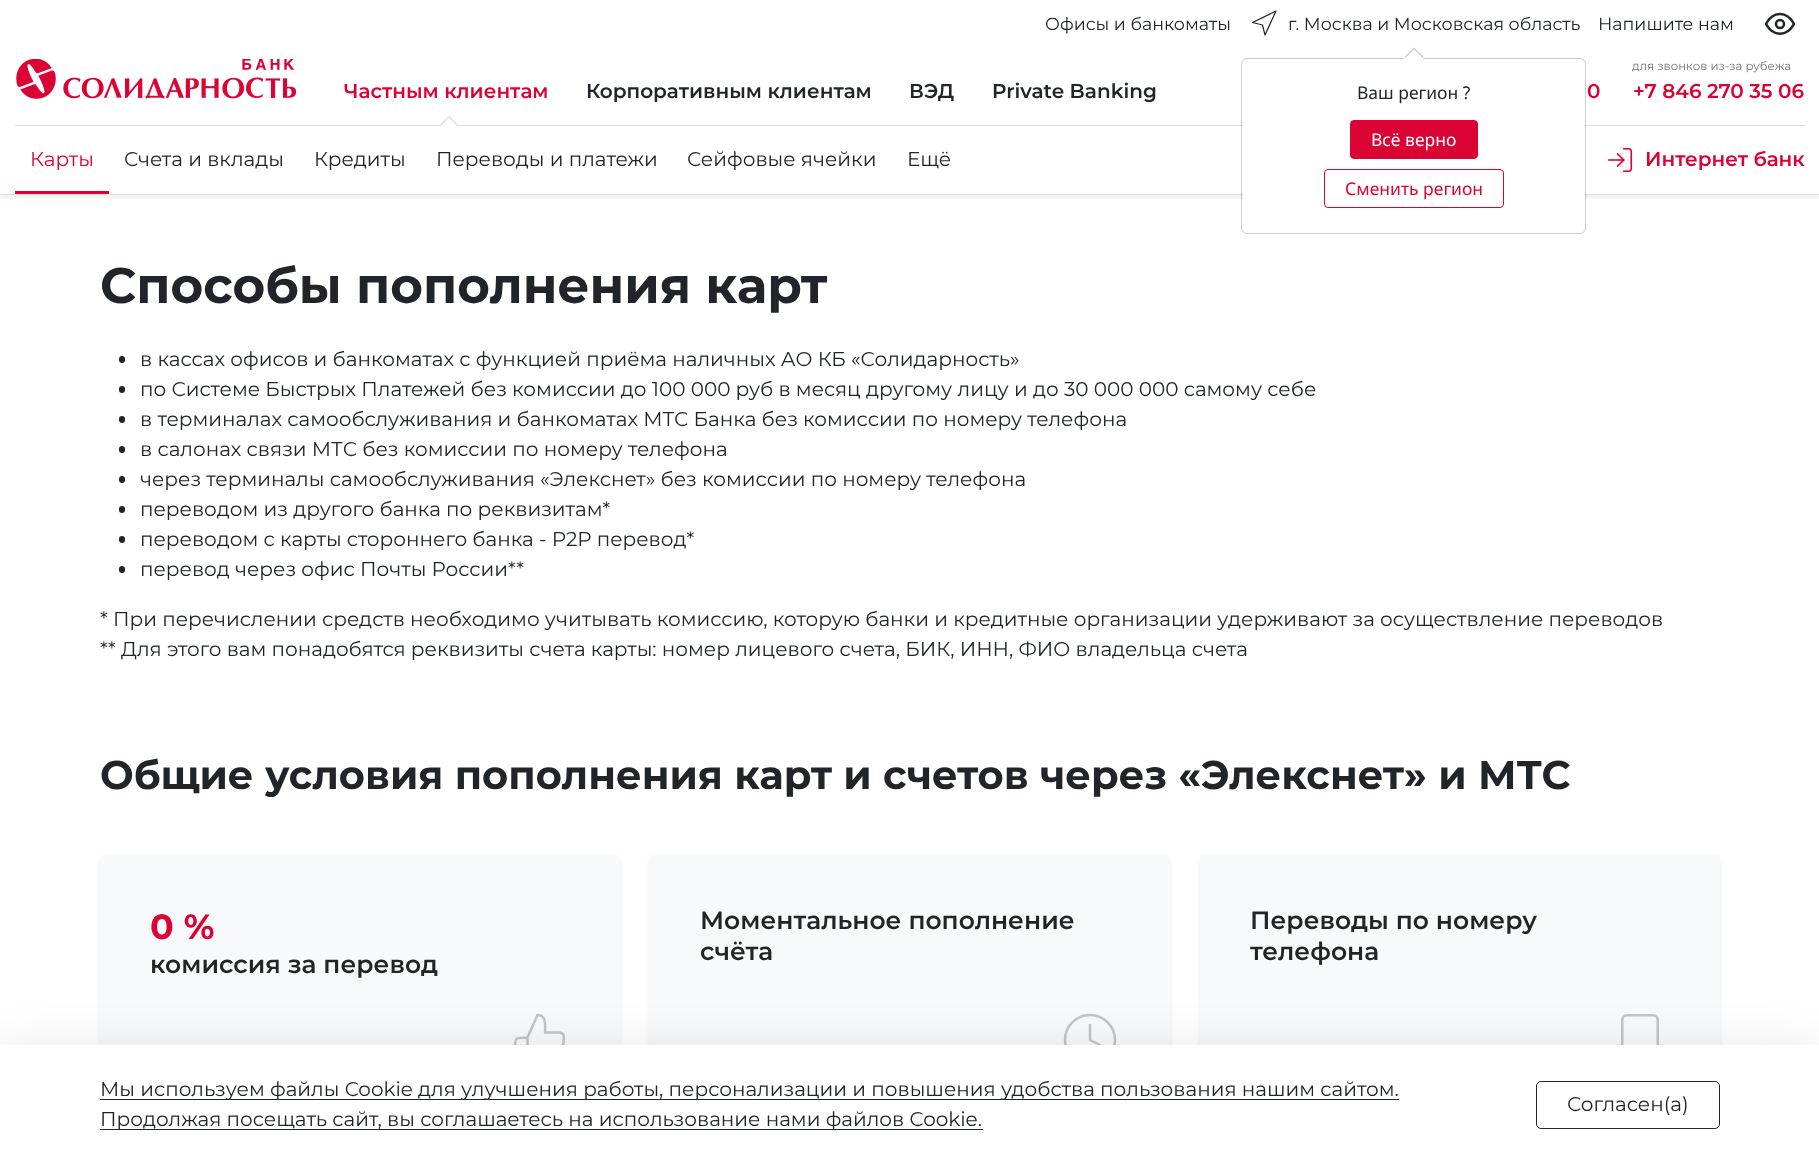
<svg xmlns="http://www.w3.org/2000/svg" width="1819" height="1164">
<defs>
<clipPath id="clip1"><rect x="1765" y="9" width="30" height="30"/></clipPath>
<clipPath id="clip2"><rect x="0" y="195" width="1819" height="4"/></clipPath>
</defs>
<rect width="100%" height="100%" fill="#fff"/>
<text x="1045" y="30" style="font-family:Montserrat;font-size:17.5px;fill:#212529">Офисы и банкоматы</text>
<path d="M1252.5 22.5l23.5-11.5l-11 24l-2.5-10z" fill="none" stroke="#212529" stroke-width="1.2" stroke-linecap="round" stroke-linejoin="round"/>
<text x="1288" y="30" style="font-family:Montserrat;font-size:17.5px;fill:#212529">г. Москва и Московская область</text>
<text x="1598" y="30" style="font-family:Montserrat;font-size:17.5px;fill:#212529">Напишите нам</text>
<g clip-path="url(#clip1)">
<path d="M1766 24c7-13.5 21-13.5 28 0c-7 13-21 13-28 0z" fill="none" stroke="#212529" stroke-width="2.5" stroke-linecap="round" stroke-linejoin="round"/>
</g>
<circle cx="1780" cy="24" r="4" fill="none" stroke="#212529" stroke-width="2.5"/>
<g clip-path="url(#clip2)">
<rect y="50" width="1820" height="148" fill="#00000012" filter="blur(2.5px)"/>
</g>
<rect y="194" width="1819" height="1" fill="#dee2e6"/>
<image x="16" y="59" width="280" height="40" href="media/1.png"/>
<text x="344" y="98" style="font-family:Montserrat;font-size:20px;font-weight:600;fill:#db0334">Частным клиентам</text>
<rect x="15" y="125" width="1790" height="1" fill="#dee2e6"/>
<path d="M459 126h-20l10-10z" fill="#cfd5db"/>
<path d="M459 127.5h-20l10-10z" fill="#fff"/>
<text x="586" y="98" style="font-family:Montserrat;font-size:20px;font-weight:600;fill:#212529">Корпоративным клиентам</text>
<text x="909" y="98" style="font-family:Montserrat;font-size:20px;font-weight:600;fill:#212529">ВЭД</text>
<text x="992" y="98" style="font-family:Montserrat;font-size:20px;font-weight:600;fill:#212529">Private Banking</text>
<text x="1587" y="98" style="font-family:Montserrat;font-size:20px;font-weight:600;fill:#db0334">0</text>
<text x="1632" y="70" style="font-family:Montserrat;font-size:11.75px;fill:#6c757d">для звонков из-за рубежа</text>
<text x="1633" y="98" style="font-family:Montserrat;font-size:20px;font-weight:600;fill:#db0334">+7 846 270 35 06</text>
<text x="30" y="166" style="font-family:Montserrat;font-size:20px;fill:#db0334">Карты</text>
<rect x="15" y="191" width="94" height="3" fill="#db0334"/>
<text x="124" y="166" style="font-family:Montserrat;font-size:20px;fill:#212529">Счета и вклады</text>
<text x="314" y="166" style="font-family:Montserrat;font-size:20px;fill:#212529">Кредиты</text>
<text x="436" y="166" style="font-family:Montserrat;font-size:20px;fill:#212529">Переводы и платежи</text>
<text x="687" y="166" style="font-family:Montserrat;font-size:20px;fill:#212529">Сейфовые ячейки</text>
<text x="907" y="166" style="font-family:Montserrat;font-size:20px;fill:#212529">Ещё</text>
<image x="1608" y="147" width="25" height="26" href="media/2.png"/>
<text x="1645" y="166" style="font-family:Montserrat;font-size:20px;font-weight:600;fill:#db0334">Интернет банк</text>
<text x="100" y="303" style="font-family:Montserrat;font-size:50px;font-weight:bold;fill:#212529">Способы пополнения карт</text>
<rect x="119" y="356" width="6" height="7" rx="3" fill="#212529"/>
<text x="140" y="366" style="font-family:Montserrat;font-size:20px;fill:#212529">в кассах офисов и банкоматах с функцией приёма наличных АО КБ «Солидарность»</text>
<rect x="119" y="386" width="6" height="7" rx="3" fill="#212529"/>
<text x="140" y="396" style="font-family:Montserrat;font-size:20px;fill:#212529">по Системе Быстрых Платежей без комиссии до 100 000 руб в месяц другому лицу и до 30 000 000 самому себе</text>
<rect x="119" y="416" width="6" height="7" rx="3" fill="#212529"/>
<text x="140" y="426" style="font-family:Montserrat;font-size:20px;fill:#212529">в терминалах самообслуживания и банкоматах МТС Банка без комиссии по номеру телефона</text>
<rect x="119" y="446" width="6" height="7" rx="3" fill="#212529"/>
<text x="140" y="456" style="font-family:Montserrat;font-size:20px;fill:#212529">в салонах связи МТС без комиссии по номеру телефона</text>
<rect x="119" y="476" width="6" height="7" rx="3" fill="#212529"/>
<text x="140" y="486" style="font-family:Montserrat;font-size:20px;fill:#212529">через терминалы самообслуживания «Элекснет» без комиссии по номеру телефона</text>
<rect x="119" y="506" width="6" height="7" rx="3" fill="#212529"/>
<text x="140" y="516" style="font-family:Montserrat;font-size:20px;fill:#212529">переводом из другого банка по реквизитам*</text>
<rect x="119" y="536" width="6" height="7" rx="3" fill="#212529"/>
<text x="140" y="546" style="font-family:Montserrat;font-size:20px;fill:#212529">переводом с карты стороннего банка - Р2Р перевод*</text>
<rect x="119" y="566" width="6" height="7" rx="3" fill="#212529"/>
<text x="140" y="576" style="font-family:Montserrat;font-size:20px;fill:#212529">перевод через офис Почты России**</text>
<text x="100" y="626" style="font-family:Montserrat;font-size:20px;fill:#212529">* При перечислении средств необходимо учитывать комиссию, которую банки и кредитные организации удерживают за осуществление переводов</text>
<text x="100" y="656" style="font-family:Montserrat;font-size:20px;fill:#212529">** Для этого вам понадобятся реквизиты счета карты: номер лицевого счета, БИК, ИНН, ФИО владельца счета</text>
<text x="100" y="789" style="font-family:Montserrat;font-size:40px;font-weight:bold;fill:#212529">Общие условия пополнения карт и счетов через «Элекснет» и МТС</text>
<rect x="100" y="858" width="520" height="255" rx="5" fill="#00000012" filter="blur(2.5px)"/>
<rect x="100" y="855" width="520" height="255" rx="5" fill="#f8f9fa"/>
<text x="150" y="939" style="font-family:Montserrat;font-size:35px;font-weight:bold;fill:#db0334">0 %</text>
<text x="150" y="973" style="font-family:Montserrat;font-size:25px;font-weight:600;fill:#212529">комиссия за перевод</text>
<path d="M545 1032.5c0-6 2-17.5-7.5-17.5l-10 22.5v27.5h23.5c8 0 9 0 10.5-8l2-15c.5-4 1.5-9.5-4.5-9.5zm-17.5 32.5c-13.5 0-12.5 0-12.5-14c0-13.5-1-13.5 12.5-13.5" fill="none" stroke="#c2c4c6" stroke-width="2.5" stroke-linecap="round" stroke-linejoin="round"/>
<rect x="650" y="858" width="520" height="255" rx="5" fill="#00000012" filter="blur(2.5px)"/>
<rect x="650" y="855" width="520" height="255" rx="5" fill="#f8f9fa"/>
<text x="700" y="929" style="font-family:Montserrat;font-size:25px;font-weight:600;fill:#212529">Моментальное пополнение</text>
<text x="700" y="960" style="font-family:Montserrat;font-size:25px;font-weight:600;fill:#212529">счёта</text>
<circle cx="1090" cy="1040" r="25" fill="none" stroke="#c2c4c6" stroke-width="2.5"/>
<path d="M1090 1025v15l10 5" fill="none" stroke="#c2c4c6" stroke-width="2.5" stroke-linecap="round" stroke-linejoin="round"/>
<rect x="1200" y="858" width="520" height="255" rx="5" fill="#00000012" filter="blur(2.5px)"/>
<rect x="1200" y="855" width="520" height="255" rx="5" fill="#f8f9fa"/>
<text x="1250" y="929" style="font-family:Montserrat;font-size:25px;font-weight:600;fill:#212529">Переводы по номеру</text>
<text x="1250" y="960" style="font-family:Montserrat;font-size:25px;font-weight:600;fill:#212529">телефона</text>
<rect x="1622.25" y="1015.25" width="35.5" height="49.5" rx="4.75" fill="none" stroke="#c2c4c6" stroke-width="2.5"/>
<rect y="1065" width="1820" height="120" fill="#0000002e" filter="blur(30px)"/>
<rect y="1045" width="1819" height="119" fill="#fff"/>
<rect x="100" y="1099" width="1299" height="1" fill="#212529"/>
<text x="100" y="1096" style="font-family:Montserrat;font-size:20px;fill:#212529">Мы используем файлы Cookie для улучшения работы, персонализации и повышения удобства пользования нашим сайтом.</text>
<rect x="100" y="1129" width="883" height="1" fill="#212529"/>
<text x="100" y="1126" style="font-family:Montserrat;font-size:20px;fill:#212529">Продолжая посещать сайт, вы соглашаетесь на использование нами файлов Cookie.</text>
<rect x="1536.5" y="1081.5" width="183" height="47" rx="4.5" fill="none" stroke="#212529"/>
<text x="1567" y="1111" style="font-family:Montserrat;font-size:20px;fill:#212529">Согласен(а)</text>
<rect x="1243" y="59" width="342" height="174" rx="5" fill="#fff"/>
<rect x="1241.5" y="58.5" width="344" height="175" rx="5.5" fill="none" stroke="#00000033"/>
<path d="M1424 57.5h-20l10-10z" fill="#bfbfbf"/>
<path d="M1424 59h-20l10-10z" fill="#fff"/>
<text x="1357" y="99" style="font-family:Noto Sans;font-size:17.5px;fill:#212529">Ваш регион ?</text>
<rect x="1350.5" y="120.5" width="127" height="38" rx="3.5" fill="#db0334" stroke="#db0334"/>
<text x="1371" y="146" style="font-family:Noto Sans;font-size:17.5px;fill:#fff">Всё верно</text>
<rect x="1324.5" y="169.5" width="179" height="38" rx="3.5" fill="none" stroke="#db0334"/>
<text x="1345" y="195" style="font-family:Noto Sans;font-size:17.5px;fill:#db0334">Сменить регион</text>
</svg>
